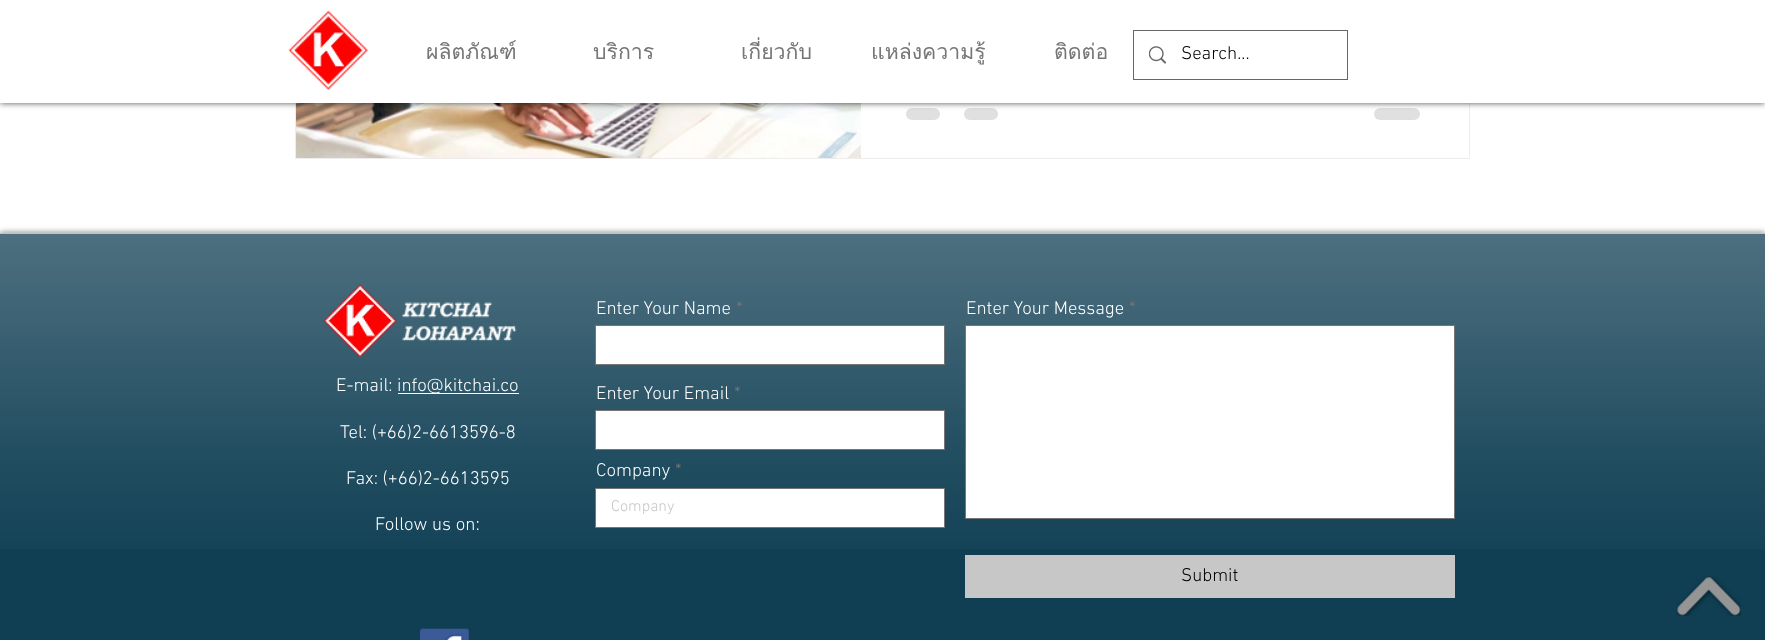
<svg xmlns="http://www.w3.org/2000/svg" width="1765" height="640">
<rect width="100%" height="100%" fill="#fff"/>
<rect x="295.5" y="-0.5" width="1174" height="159" fill="none" stroke="#eeecec"/>
<image x="296" y="103" width="565" height="55" href="media/1.png"/>
<rect x="906" y="108" width="34" height="12" rx="6" fill="#e0e0e0"/>
<rect x="964" y="108" width="34" height="12" rx="6" fill="#e0e0e0"/>
<rect x="1374" y="108" width="46" height="12" rx="6" fill="#e0e0e0"/>
<rect width="1765" height="103" fill="#000000b3" filter="blur(3px)"/>
<rect width="1765" height="103" fill="#fff"/>
<image x="288" y="11" width="80" height="79" href="media/2.png"/>
<text x="426" y="59" style="font-family:Loma;font-size:21.25px;fill:#767676">ผลิตภัณฑ์</text>
<text x="593" y="59" style="font-family:Loma;font-size:21.25px;fill:#767676">บริการ</text>
<text x="741" y="59" style="font-family:Loma;font-size:21.25px;fill:#767676">เกี่ยวกับ</text>
<text x="871" y="59" style="font-family:Loma;font-size:21.25px;fill:#767676">แหล่งความรู้</text>
<text x="1054" y="59" style="font-family:Loma;font-size:21.25px;fill:#767676">ติดต่อ</text>
<rect x="1133.5" y="30.5" width="214" height="49" fill="none" stroke="#666"/>
<image x="1149" y="46" width="17" height="18" href="media/3.png"/>
<text x="1181" y="59" style="font-family:'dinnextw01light';font-size:18.75px;font-weight:300;fill:#000">Search...</text>
<rect y="233" width="1765" height="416" fill="#00000099" filter="blur(3px)"/>
<rect y="234" width="1765" height="406" fill="#103f54"/>
<image x="0" y="232" width="1765" height="317" href="media/4.png"/>
<rect y="233" width="1765" height="1" fill="#b8c6cc"/>
<image x="323" y="284" width="194" height="74" href="media/5.png"/>
<text x="596" y="314" style="font-family:'dinnextw01light';font-size:18.75px;font-weight:300;fill:#fff">Enter Your Name</text>
<text x="736" y="314" style="font-family:'dinnextw01light';font-size:18.75px;font-weight:300;fill:#767676">*</text>
<rect x="595.5" y="325.5" width="349" height="39" fill="#fff" stroke="#767676"/>
<text x="966" y="314" style="font-family:'dinnextw01light';font-size:18.75px;font-weight:300;fill:#fff">Enter Your Message</text>
<text x="1129" y="314" style="font-family:'dinnextw01light';font-size:18.75px;font-weight:300;fill:#767676">*</text>
<rect x="965.5" y="325.5" width="489" height="193" fill="#fff" stroke="#767676"/>
<text x="596" y="399" style="font-family:'dinnextw01light';font-size:18.75px;font-weight:300;fill:#fff">Enter Your Email</text>
<text x="734" y="399" style="font-family:'dinnextw01light';font-size:18.75px;font-weight:300;fill:#767676">*</text>
<rect x="595.5" y="410.5" width="349" height="39" fill="#fff" stroke="#767676"/>
<text x="596" y="476" style="font-family:'dinnextw01light';font-size:18.75px;font-weight:300;fill:#fff">Company</text>
<text x="675" y="476" style="font-family:'dinnextw01light';font-size:18.75px;font-weight:300;fill:#767676">*</text>
<rect x="595.5" y="488.5" width="349" height="39" fill="#fff" stroke="#767676"/>
<text x="611" y="511" style="font-family:'dinnextw01light';font-size:16px;font-weight:300;fill:#c7c7c7">Company</text>
<rect x="965" y="555" width="490" height="43" fill="#c7c7c7"/>
<text x="1181" y="581" style="font-family:'dinnextw01light';font-size:18.75px;font-weight:300;fill:#000">Submit</text>
<text x="336" y="391" style="font-family:'dinnextw01light';font-size:18.75px;font-weight:300;fill:#fff">E-mail:</text>
<rect x="398" y="393" width="121" height="1" fill="#fff"/>
<text x="397" y="391" style="font-family:'dinnextw01light';font-size:18.75px;font-weight:300;fill:#fff">info@kitchai.co</text>
<text x="340" y="438" style="font-family:'dinnextw01light';font-size:18.75px;font-weight:300;fill:#fff">Tel: (+66)2-6613596-8</text>
<text x="346" y="484" style="font-family:'dinnextw01light';font-size:18.75px;font-weight:300;fill:#fff">Fax: (+66)2-6613595</text>
<text x="375" y="530" style="font-family:'dinnextw01light';font-size:18.75px;font-weight:300;fill:#fff">Follow us on:</text>
<image x="420" y="628" width="49" height="12" href="media/6.png"/>
<image x="1676" y="576" width="65" height="40" href="media/7.png"/>
</svg>
